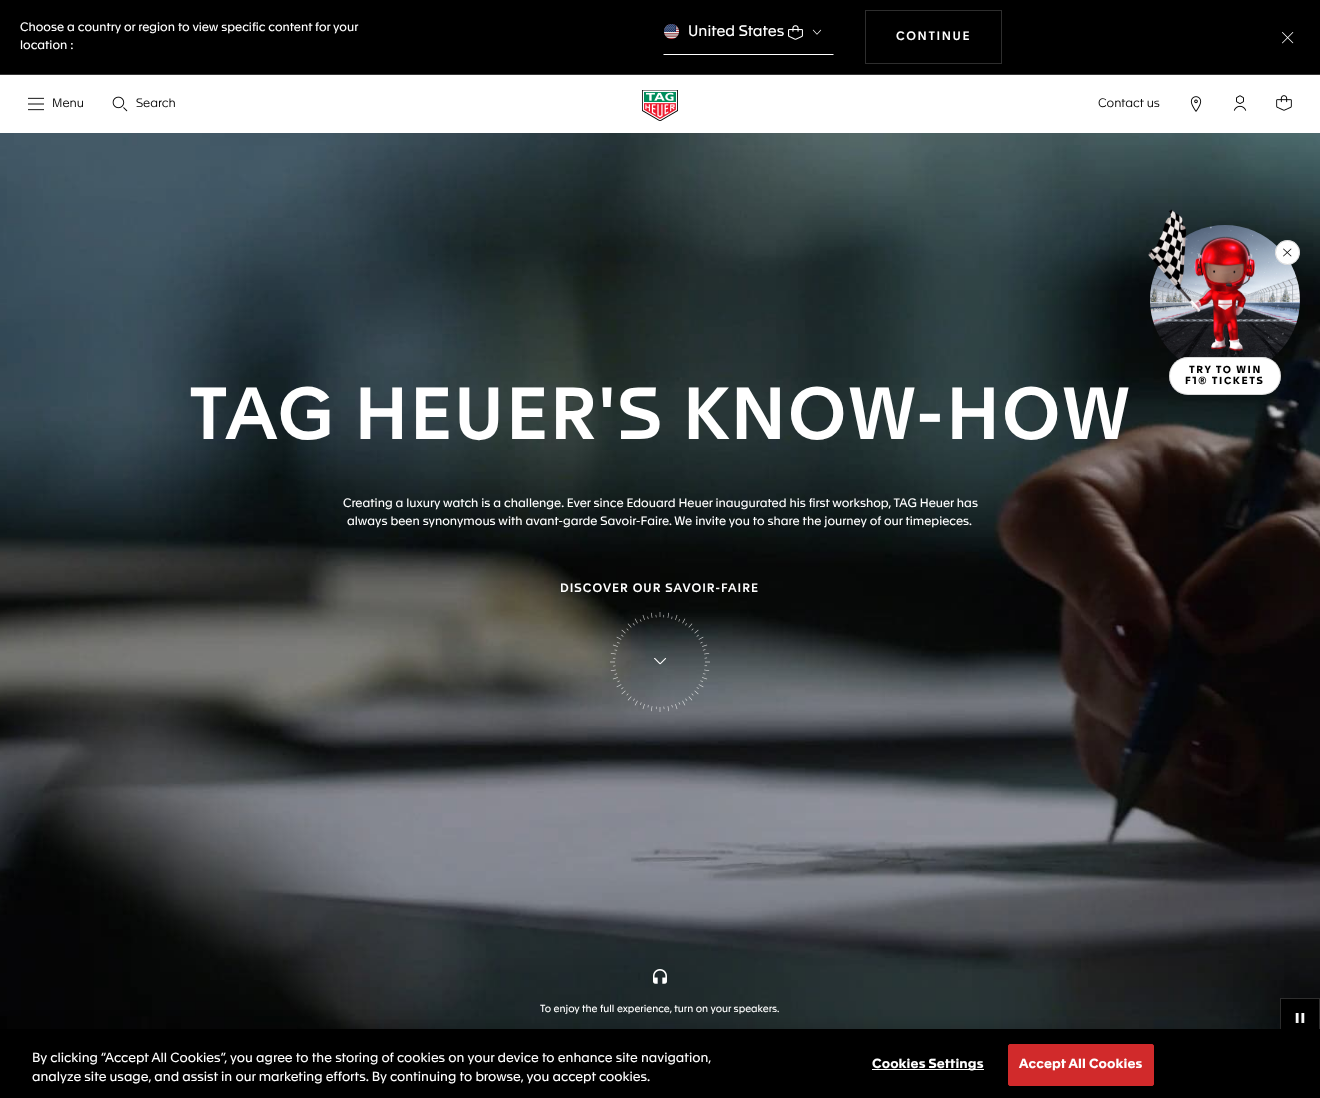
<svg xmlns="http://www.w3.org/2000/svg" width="1320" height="1098">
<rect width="100%" height="100%" fill="#fff"/>
<rect width="1320" height="74" fill="#000"/>
<rect y="74" width="1320" height="1" fill="#363636"/>
<text x="20" y="31" style="font-family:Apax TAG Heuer;font-size:12px;fill:#fff">Choose a country or region to view specific content for your</text>
<text x="20" y="49" style="font-family:Apax TAG Heuer;font-size:12px;fill:#fff">location :</text>
<path d="M834 55h-171l1-1h169z" fill="#fff"/>
<image x="664" y="24" width="15" height="15" href="media/1.png"/>
<text x="688" y="36" style="font-family:Apax TAG Heuer;font-size:15px;fill:#fff">United States</text>
<image x="788" y="25" width="15" height="15" href="media/2.png"/>
<image x="812" y="29" width="10" height="6" href="media/3.png"/>
<rect x="865.5" y="10.5" width="136" height="53" fill="none" stroke="#2e2e2e"/>
<text x="896" y="40" style="font-family:Apax TAG Heuer;font-size:12px;font-weight:500;letter-spacing:1.6px;fill:#fff">CONTINUE</text>
<image x="1282" y="32" width="12" height="12" href="media/4.png"/>
<image x="642" y="90" width="36" height="31" href="media/5.png"/>
<image x="28" y="97" width="16" height="14" href="media/6.png"/>
<text x="52" y="107" style="font-family:Apax TAG Heuer;font-size:12px;font-weight:300;fill:#000">Menu</text>
<image x="112" y="96" width="16" height="16" href="media/7.png"/>
<text x="136" y="107" style="font-family:Apax TAG Heuer;font-size:12px;font-weight:300;fill:#000">Search</text>
<text x="1098" y="107" style="font-family:Apax TAG Heuer;font-size:12px;font-weight:300;fill:#000">Contact us</text>
<image x="1190" y="96" width="12" height="16" href="media/8.png"/>
<image x="1233" y="95" width="14" height="16" href="media/9.png"/>
<image x="1276" y="95" width="16" height="16" href="media/10.png"/>
<image x="0" y="133" width="1320" height="896" href="media/13.png"/>
<image x="1150" y="225" width="150" height="135" href="media/12.png"/>
<circle cx="1287.5" cy="252.5" r="12.5" fill="#fff"/>
<circle cx="1287.5" cy="252.5" r="12" fill="none" stroke="#9696965c"/>
<path d="M1291 248.5l.5 .5l-8 7.5l-.5-.5z" fill="#000"/>
<path d="M1283 249l.5-.5l8 7.5l-.5 .5z" fill="#000"/>
<image x="1148" y="209" width="108" height="142" href="media/11.png"/>
<rect x="1169" y="357" width="112" height="38" rx="19" fill="#fff"/>
<rect x="1169.5" y="357.5" width="111" height="37" rx="18.5" fill="none" stroke="#9696965c"/>
<text x="1189" y="373" style="font-family:Apax TAG Heuer;font-size:10px;font-weight:bold;letter-spacing:1.6px;fill:#000">TRY TO WIN</text>
<text x="1185" y="384" style="font-family:Apax TAG Heuer;font-size:10px;font-weight:bold;letter-spacing:1.6px;fill:#000">F1® TICKETS</text>
<text x="189" y="439" style="font-family:Apax TAG Heuer;font-size:72px;font-weight:500;letter-spacing:2px;fill:#fff">TAG HEUER'S KNOW-HOW</text>
<text x="343" y="507" style="font-family:Apax TAG Heuer;font-size:12px;fill:#fff">Creating a luxury watch is a challenge. Ever since Edouard Heuer inaugurated his first workshop, TAG Heuer has</text>
<text x="347" y="525" style="font-family:Apax TAG Heuer;font-size:12px;fill:#fff">always been synonymous with avant-garde Savoir-Faire. We invite you to share the journey of our timepieces.</text>
<text x="560" y="592" style="font-family:Apax TAG Heuer;font-size:12px;font-weight:500;letter-spacing:1px;fill:#fff">DISCOVER OUR SAVOIR-FAIRE</text>
<image x="610" y="612" width="100" height="100" href="media/14.png"/>
<image x="654" y="658" width="13" height="7" href="media/15.png"/>
<image x="653" y="969" width="14" height="15" href="media/16.png"/>
<text x="540" y="1012" style="font-family:Apax TAG Heuer;font-size:10px;fill:#fff">To enjoy the full experience, turn on your speakers.</text>
<rect x="1281" y="999" width="38" height="30" fill="#000"/>
<rect x="1280.5" y="998.5" width="39" height="39" fill="none" stroke="#2e2e2e"/>
<image x="1295" y="1013" width="10" height="10" href="media/17.png"/>
<rect y="1029" width="1320" height="69" fill="#00000033" filter="blur(9px)"/>
<rect y="1029" width="1320" height="69" fill="#000"/>
<text x="32" y="1062" style="font-family:Apax TAG Heuer;font-size:13px;fill:#fff">By clicking “Accept All Cookies”, you agree to the storing of cookies on your device to enhance site navigation,</text>
<text x="32" y="1081" style="font-family:Apax TAG Heuer;font-size:13px;fill:#fff">analyze site usage, and assist in our marketing efforts. By continuing to browse, you accept cookies.</text>
<rect x="872" y="1069" width="112" height="1" fill="#fff"/>
<text x="872" y="1068" style="font-family:Apax TAG Heuer;font-size:13px;font-weight:bold;letter-spacing:0.1px;fill:#fff">Cookies Settings</text>
<rect x="1008.5" y="1044.5" width="145" height="41" rx="1.5" fill="#d12a2b" stroke="#d12a2b"/>
<text x="1019" y="1068" style="font-family:Apax TAG Heuer;font-size:13px;font-weight:bold;letter-spacing:0.1px;fill:#fff">Accept All Cookies</text>
</svg>
